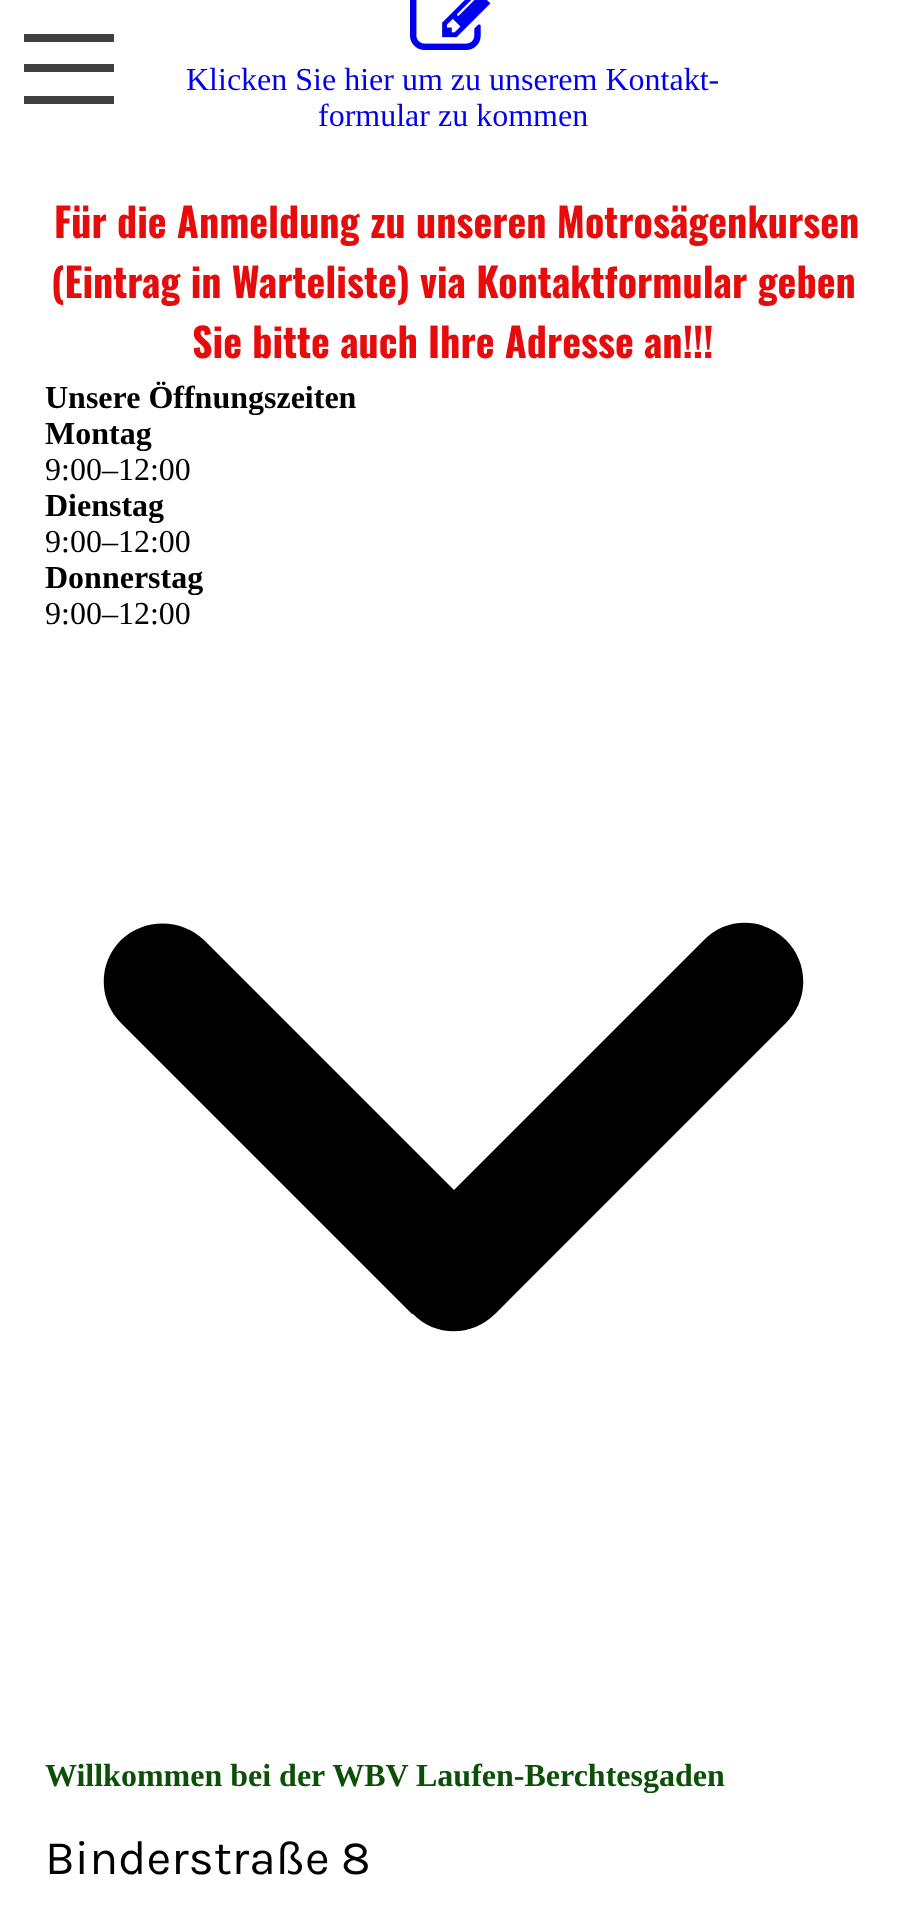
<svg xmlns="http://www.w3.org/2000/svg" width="906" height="1916">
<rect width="100%" height="100%" fill="#fff"/>
<rect x="24" y="34" width="90" height="8" fill="#404040"/>
<rect x="24" y="64" width="90" height="8" fill="#404040"/>
<rect x="24" y="96" width="90" height="8" fill="#404040"/>
<image x="410" y="0" width="84" height="50" href="media/1.png"/>
<text x="186" y="90" style="font-family:Liberation Serif;font-size:32px;fill:#00e">Klicken Sie hier um zu unserem Kontakt-</text>
<text x="318" y="126" style="font-family:Liberation Serif;font-size:32px;fill:#00e">formular zu kommen</text>
<text x="54" y="238" style="font-family:Oswald;font-size:40px;font-weight:bold;fill:#e70c0c">Für die Anmeldung zu unseren Motrosägenkursen</text>
<text x="51" y="298" style="font-family:Oswald;font-size:40px;font-weight:bold;fill:#e70c0c">(Eintrag in Warteliste) via Kontaktformular geben</text>
<text x="192" y="358" style="font-family:Oswald;font-size:40px;font-weight:bold;fill:#e70c0c">Sie bitte auch Ihre Adresse an!!!</text>
<text x="45" y="408" style="font-family:Liberation Serif;font-size:32px;font-weight:bold;fill:#000">Unsere Öffnungszeiten</text>
<text x="45" y="444" style="font-family:Liberation Serif;font-size:32px;font-weight:bold;fill:#000">Montag</text>
<text x="45" y="480" style="font-family:Liberation Serif;font-size:32px;fill:#000">9:00–12:00</text>
<text x="45" y="516" style="font-family:Liberation Serif;font-size:32px;font-weight:bold;fill:#000">Dienstag</text>
<text x="45" y="552" style="font-family:Liberation Serif;font-size:32px;fill:#000">9:00–12:00</text>
<text x="45" y="588" style="font-family:Liberation Serif;font-size:32px;font-weight:bold;fill:#000">Donnerstag</text>
<text x="45" y="624" style="font-family:Liberation Serif;font-size:32px;fill:#000">9:00–12:00</text>
<path d="M413 1314c22 23 59 23 82 0l291-291c23-23 23-60 0-83c-23-23-60-23-82 0l-250 250l-250-250c-23-22-60-22-83 0c-23 23-23 60 0 83l291 291z" fill="#000"/>
<text x="45" y="1786" style="font-family:Liberation Serif;font-size:32px;font-weight:bold;fill:#0c5008">Willkommen bei der WBV Laufen-Berchtesgaden</text>
<text x="45" y="1874" style="font-family:Karla;font-size:48px;fill:#000">Binderstraße 8</text>
</svg>
